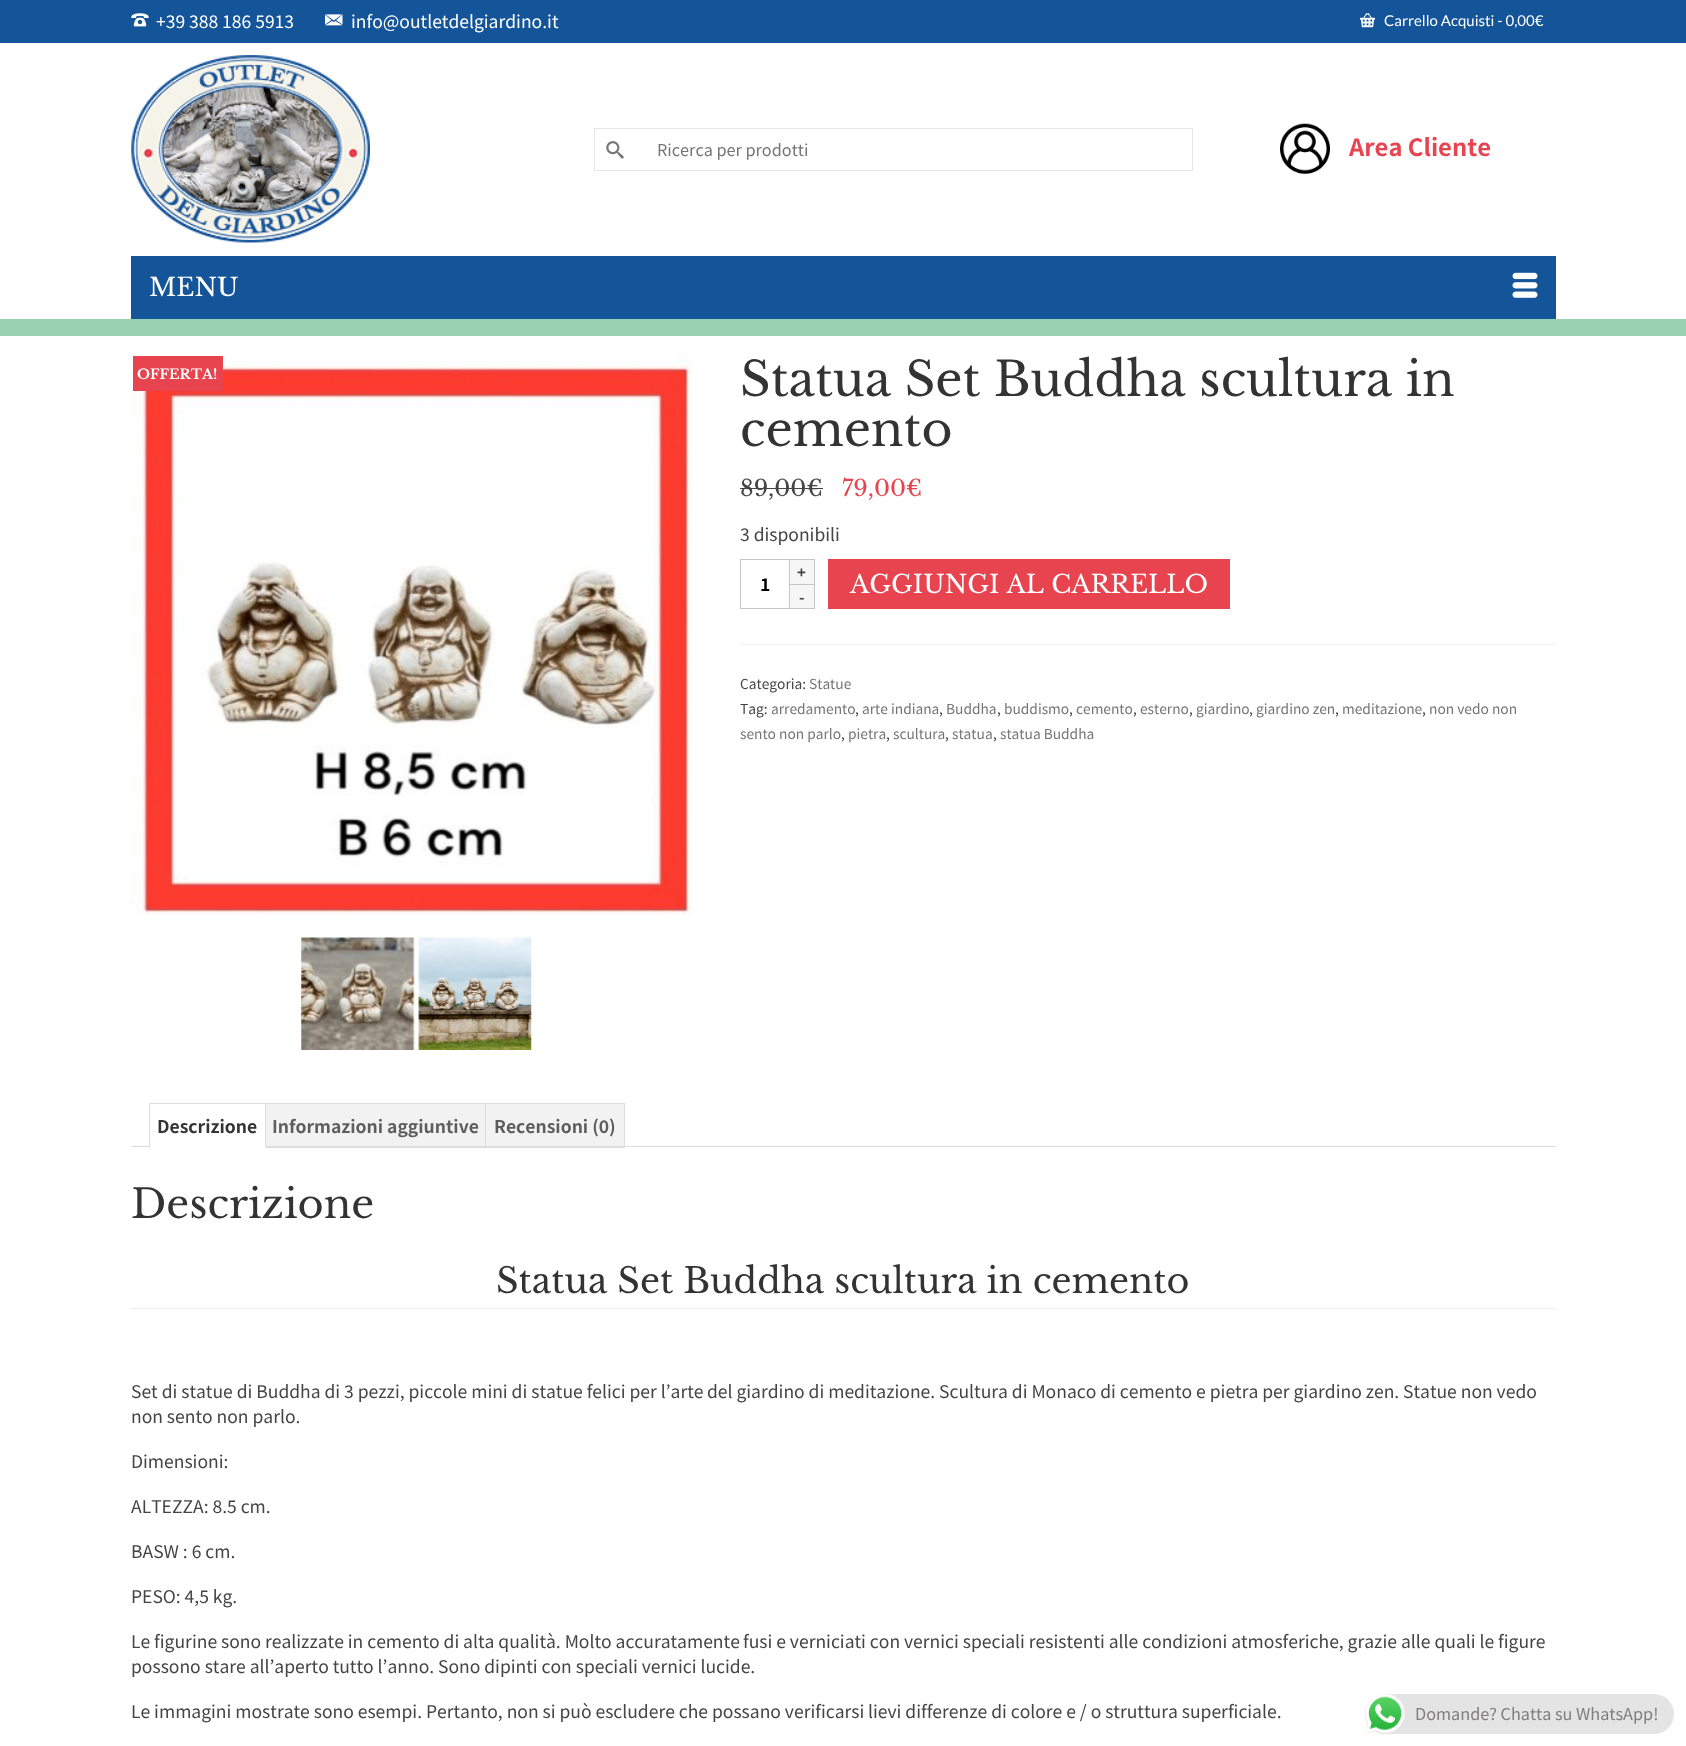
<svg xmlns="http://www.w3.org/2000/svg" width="1686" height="1746">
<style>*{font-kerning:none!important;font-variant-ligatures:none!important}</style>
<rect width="100%" height="100%" fill="#fff"/>
<rect width="1686" height="43" fill="#145498"/>
<image x="131" y="13" width="18" height="14" href="media/1.png"/>
<text x="156" y="28" style="font-family:Noto Sans KR;font-size:17.5px;fill:#fff">+39 388 186 5913</text>
<image x="325" y="14" width="18" height="12" href="media/2.png"/>
<text x="351" y="28" style="font-family:Noto Sans KR;font-size:17.5px;fill:#fff">info@outletdelgiardino.it</text>
<image x="1360" y="13" width="15" height="15" href="media/3.png"/>
<text x="1384" y="26" style="font-family:Lato;font-size:15px;fill:#fff">Carrello Acquisti - 0,00€</text>
<image x="131" y="55" width="239" height="188" href="media/4.png"/>
<rect x="594.5" y="128.5" width="598" height="42" fill="none" stroke="#e7e7e7"/>
<image x="606" y="141" width="18" height="18" href="media/5.png"/>
<text x="657" y="156" style="font-family:Noto Sans KR;font-size:16.25px;fill:#757575">Ricerca per prodotti</text>
<image x="1280" y="123" width="50" height="51" href="media/6.png"/>
<text x="1349" y="156" style="font-family:Noto Sans KR;font-size:23.75px;font-weight:bold;fill:#e8444f">Area Cliente</text>
<rect x="131" y="256" width="1425" height="63" fill="#145498"/>
<text x="149" y="296" style="font-family:Libre Baskerville;font-size:25px;fill:#fff">MENU</text>
<image x="1512" y="272" width="26" height="26" href="media/7.png"/>
<rect y="319" width="1686" height="17" fill="#9ad1b2"/>
<image x="131" y="355" width="561" height="560" href="media/8.png"/>
<image x="301" y="937" width="114" height="113" href="media/9.png"/>
<image x="418" y="937" width="114" height="113" href="media/10.png"/>
<rect x="133" y="356" width="90" height="35" fill="#e8444f"/>
<text x="137" y="379" style="font-family:Libre Baskerville;font-size:13.75px;font-weight:bold;fill:#fff">OFFERTA!</text>
<text x="740" y="396" style="font-family:Libre Baskerville;font-size:47.5px;fill:#333">Statua Set Buddha scultura in</text>
<text x="740" y="446" style="font-family:Libre Baskerville;font-size:47.5px;fill:#333">cemento</text>
<text x="740" y="496" style="font-family:Libre Baskerville;font-size:22.5px;fill:#444">89,00€</text>
<rect x="740" y="488" width="83" height="1" fill="#444"/>
<text x="842" y="496" style="font-family:Libre Baskerville;font-size:22.5px;fill:#e8444f">79,00€</text>
<text x="740" y="541" style="font-family:Noto Sans KR;font-size:17.5px;fill:#444">3 disponibili</text>
<rect x="790" y="560" width="24" height="24" fill="#f7f6f7"/>
<rect x="790" y="559" width="25" height="1" fill="#c6c6c6"/>
<rect x="814" y="559" width="1" height="25" fill="#c6c6c6"/>
<text x="797" y="578" style="font-family:Noto Sans KR;font-size:15px;font-weight:bold;fill:#444">+</text>
<rect x="740.5" y="559.5" width="49" height="49" fill="none" stroke="#c6c6c6"/>
<text x="760" y="591" style="font-family:Noto Sans KR;font-size:17.5px;font-weight:bold;fill:#000">1</text>
<rect x="790" y="585" width="24" height="23" fill="#f7f6f7"/>
<rect x="790" y="584" width="25" height="1" fill="#c6c6c6"/>
<rect x="814" y="584" width="1" height="25" fill="#c6c6c6"/>
<rect x="790" y="608" width="25" height="1" fill="#c6c6c6"/>
<text x="799" y="603" style="font-family:Noto Sans KR;font-size:15px;font-weight:bold;fill:#444">-</text>
<rect x="828" y="559" width="402" height="50" fill="#e8444f"/>
<text x="850" y="593" style="font-family:Libre Baskerville;font-size:25px;fill:#fff">AGGIUNGI AL CARRELLO</text>
<rect x="740" y="644" width="816" height="1" fill="#f2f2f2"/>
<text x="740" y="689" style="font-family:Noto Sans KR;font-size:13.75px;fill:#444">Categoria:</text>
<text x="809" y="689" style="font-family:Noto Sans KR;font-size:13.75px;fill:#757575">Statue</text>
<text x="740" y="714" style="font-family:Noto Sans KR;font-size:13.75px;fill:#444">Tag:</text>
<text x="771" y="714" style="font-family:Noto Sans KR;font-size:13.75px;fill:#757575">arredamento</text>
<text x="855" y="714" style="font-family:Noto Sans KR;font-size:13.75px;fill:#444">,</text>
<text x="862" y="714" style="font-family:Noto Sans KR;font-size:13.75px;fill:#757575">arte indiana</text>
<text x="939" y="714" style="font-family:Noto Sans KR;font-size:13.75px;fill:#444">,</text>
<text x="946" y="714" style="font-family:Noto Sans KR;font-size:13.75px;fill:#757575">Buddha</text>
<text x="997" y="714" style="font-family:Noto Sans KR;font-size:13.75px;fill:#444">,</text>
<text x="1004" y="714" style="font-family:Noto Sans KR;font-size:13.75px;fill:#757575">buddismo</text>
<text x="1069" y="714" style="font-family:Noto Sans KR;font-size:13.75px;fill:#444">,</text>
<text x="1076" y="714" style="font-family:Noto Sans KR;font-size:13.75px;fill:#757575">cemento</text>
<text x="1133" y="714" style="font-family:Noto Sans KR;font-size:13.75px;fill:#444">,</text>
<text x="1140" y="714" style="font-family:Noto Sans KR;font-size:13.75px;fill:#757575">esterno</text>
<text x="1189" y="714" style="font-family:Noto Sans KR;font-size:13.75px;fill:#444">,</text>
<text x="1196" y="714" style="font-family:Noto Sans KR;font-size:13.75px;fill:#757575">giardino</text>
<text x="1249" y="714" style="font-family:Noto Sans KR;font-size:13.75px;fill:#444">,</text>
<text x="1256" y="714" style="font-family:Noto Sans KR;font-size:13.75px;fill:#757575">giardino zen</text>
<text x="1335" y="714" style="font-family:Noto Sans KR;font-size:13.75px;fill:#444">,</text>
<text x="1342" y="714" style="font-family:Noto Sans KR;font-size:13.75px;fill:#757575">meditazione</text>
<text x="1422" y="714" style="font-family:Noto Sans KR;font-size:13.75px;fill:#444">,</text>
<text x="1429" y="714" style="font-family:Noto Sans KR;font-size:13.75px;fill:#757575">non vedo non</text>
<text x="740" y="739" style="font-family:Noto Sans KR;font-size:13.75px;fill:#757575">sento non parlo</text>
<text x="841" y="739" style="font-family:Noto Sans KR;font-size:13.75px;fill:#444">,</text>
<text x="848" y="739" style="font-family:Noto Sans KR;font-size:13.75px;fill:#757575">pietra</text>
<text x="886" y="739" style="font-family:Noto Sans KR;font-size:13.75px;fill:#444">,</text>
<text x="893" y="739" style="font-family:Noto Sans KR;font-size:13.75px;fill:#757575">scultura</text>
<text x="945" y="739" style="font-family:Noto Sans KR;font-size:13.75px;fill:#444">,</text>
<text x="952" y="739" style="font-family:Noto Sans KR;font-size:13.75px;fill:#757575">statua</text>
<text x="993" y="739" style="font-family:Noto Sans KR;font-size:13.75px;fill:#444">,</text>
<text x="1000" y="739" style="font-family:Noto Sans KR;font-size:13.75px;fill:#757575">statua Buddha</text>
<rect x="266" y="1104" width="219" height="42" fill="#f2f2f2"/>
<rect x="264.5" y="1103.5" width="223" height="44" fill="none" stroke="#ddd"/>
<rect x="486" y="1104" width="138" height="42" fill="#f2f2f2"/>
<rect x="485.5" y="1103.5" width="139" height="44" fill="none" stroke="#ddd"/>
<rect x="131" y="1146" width="1425" height="1" fill="#dfdbdf"/>
<rect x="150" y="1104" width="115" height="44" fill="#fff"/>
<rect x="149" y="1103" width="117" height="1" fill="#ddd"/>
<rect x="265" y="1103" width="1" height="45" fill="#ddd"/>
<rect x="149" y="1146" width="117" height="1" fill="#fff"/>
<rect x="149" y="1103" width="1" height="45" fill="#ddd"/>
<text x="157" y="1133" style="font-family:Noto Sans KR;font-size:17.5px;font-weight:bold;fill:#333">Descrizione</text>
<text x="272" y="1133" style="font-family:Noto Sans KR;font-size:17.5px;font-weight:bold;fill:#5e5e5e">Informazioni aggiuntive</text>
<text x="494" y="1133" style="font-family:Noto Sans KR;font-size:17.5px;font-weight:bold;fill:#5e5e5e">Recensioni (0)</text>
<text x="131" y="1218" style="font-family:Libre Baskerville;font-size:40px;fill:#333">Descrizione</text>
<rect x="131" y="1308" width="1425" height="1" fill="#eee"/>
<text x="496" y="1293" style="font-family:Libre Baskerville;font-size:35px;fill:#333">Statua Set Buddha scultura in cemento</text>
<text x="131" y="1398" style="font-family:Noto Sans KR;font-size:17.5px;fill:#444">Set di statue di Buddha di 3 pezzi, piccole mini di statue felici per l’arte</text>
<text x="707" y="1398" style="font-family:Noto Sans KR;font-size:17.5px;fill:#444">del giardino di meditazione. Scultura di Monaco di cemento e pietra per giardino zen.</text>
<text x="1403" y="1398" style="font-family:Noto Sans KR;font-size:17.5px;fill:#444">Statue non vedo</text>
<text x="131" y="1423" style="font-family:Noto Sans KR;font-size:17.5px;fill:#444">non sento non parlo.</text>
<text x="131" y="1468" style="font-family:Noto Sans KR;font-size:17.5px;fill:#444">Dimensioni:</text>
<text x="131" y="1513" style="font-family:Noto Sans KR;font-size:17.5px;fill:#444">ALTEZZA: 8.5 cm.</text>
<text x="131" y="1558" style="font-family:Noto Sans KR;font-size:17.5px;fill:#444">BASW : 6 cm.</text>
<text x="131" y="1603" style="font-family:Noto Sans KR;font-size:17.5px;fill:#444">PESO: 4,5 kg.</text>
<text x="131" y="1648" style="font-family:Noto Sans KR;font-size:17.5px;fill:#444">Le figurine sono realizzate in cemento di alta qualità. Molto accuratamente</text>
<text x="743" y="1648" style="font-family:Noto Sans KR;font-size:17.5px;fill:#444">fusi e verniciati con vernici speciali resistenti alle condizioni atmosferiche, grazie</text>
<text x="1401" y="1648" style="font-family:Noto Sans KR;font-size:17.5px;fill:#444">alle quali le figure</text>
<text x="131" y="1673" style="font-family:Noto Sans KR;font-size:17.5px;fill:#444">possono stare all’aperto tutto l’anno.</text>
<text x="438" y="1673" style="font-family:Noto Sans KR;font-size:17.5px;fill:#444">Sono dipinti con speciali vernici lucide.</text>
<text x="131" y="1718" style="font-family:Noto Sans KR;font-size:17.5px;fill:#444">Le immagini mostrate sono esempi. Pertanto, non si può escludere che possano verificarsi</text>
<text x="868" y="1718" style="font-family:Noto Sans KR;font-size:17.5px;fill:#444">lievi differenze di colore e / o struttura superficiale.</text>
<rect x="1365" y="1694" width="309" height="40" rx="20" fill="#e4e4e4"/>
<image x="1365" y="1694" width="40" height="40" href="media/11.png"/>
<text x="1415" y="1720" style="font-family:Noto Sans KR;font-size:16.25px;fill:#7f7d7d">Domande? Chatta su WhatsApp!</text>
</svg>
